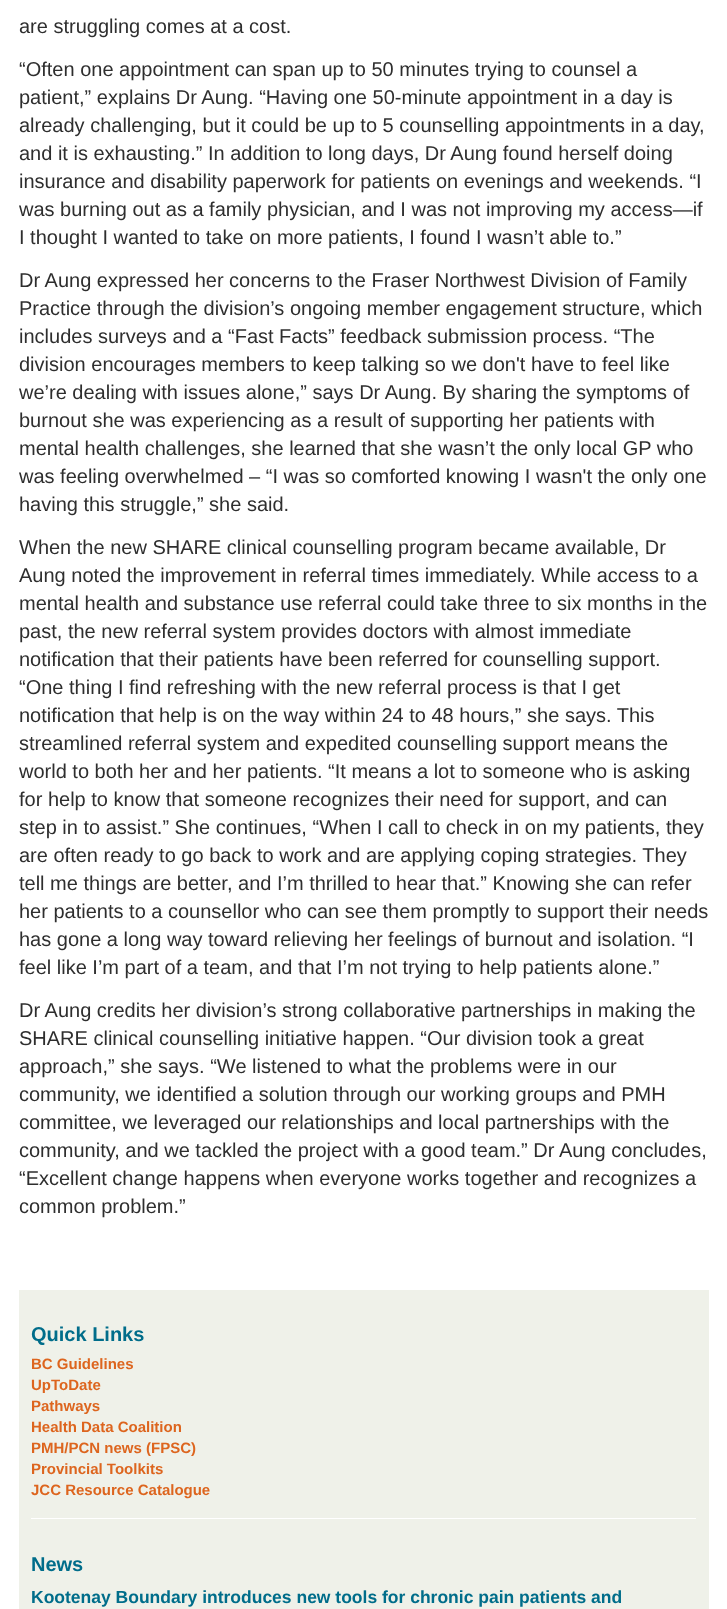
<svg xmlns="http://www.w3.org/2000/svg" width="727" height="1609">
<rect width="100%" height="100%" fill="#fff"/>
<text x="19" y="33" style="font-family:Liberation Sans;font-size:20px;fill:#2e2e2e">are struggling comes at a cost.</text>
<text x="19" y="76" style="font-family:Liberation Sans;font-size:20px;fill:#2e2e2e">“Often one appointment can span up to 50 minutes trying to counsel a</text>
<text x="19" y="104" style="font-family:Liberation Sans;font-size:20px;fill:#2e2e2e">patient,” explains Dr Aung. “Having one 50-minute appointment in a day is</text>
<text x="19" y="132" style="font-family:Liberation Sans;font-size:20px;fill:#2e2e2e">already challenging, but it could be up to 5 counselling appointments in a day,</text>
<text x="19" y="160" style="font-family:Liberation Sans;font-size:20px;fill:#2e2e2e">and it is exhausting.” In addition to long days, Dr Aung found herself doing</text>
<text x="19" y="188" style="font-family:Liberation Sans;font-size:20px;fill:#2e2e2e">insurance and disability paperwork for patients on evenings and weekends. “I</text>
<text x="19" y="216" style="font-family:Liberation Sans;font-size:20px;fill:#2e2e2e">was burning out as a family physician, and I was not improving my access—if</text>
<text x="19" y="244" style="font-family:Liberation Sans;font-size:20px;fill:#2e2e2e">I thought I wanted to take on more patients, I found I wasn’t able to.”</text>
<text x="19" y="287" style="font-family:Liberation Sans;font-size:20px;fill:#2e2e2e">Dr Aung expressed her concerns to the Fraser Northwest Division of Family</text>
<text x="19" y="315" style="font-family:Liberation Sans;font-size:20px;fill:#2e2e2e">Practice through the division’s ongoing member engagement structure, which</text>
<text x="19" y="343" style="font-family:Liberation Sans;font-size:20px;fill:#2e2e2e">includes surveys and a “Fast Facts” feedback submission process. “The</text>
<text x="19" y="371" style="font-family:Liberation Sans;font-size:20px;fill:#2e2e2e">division encourages members to keep talking so we don't have to feel like</text>
<text x="19" y="399" style="font-family:Liberation Sans;font-size:20px;fill:#2e2e2e">we’re dealing with issues alone,” says Dr Aung. By sharing the symptoms of</text>
<text x="19" y="427" style="font-family:Liberation Sans;font-size:20px;fill:#2e2e2e">burnout she was experiencing as a result of supporting her patients with</text>
<text x="19" y="455" style="font-family:Liberation Sans;font-size:20px;fill:#2e2e2e">mental health challenges, she learned that she wasn’t the only local GP who</text>
<text x="19" y="483" style="font-family:Liberation Sans;font-size:20px;fill:#2e2e2e">was feeling overwhelmed – “I was so comforted knowing I wasn't the only one</text>
<text x="19" y="511" style="font-family:Liberation Sans;font-size:20px;fill:#2e2e2e">having this struggle,” she said.</text>
<text x="19" y="554" style="font-family:Liberation Sans;font-size:20px;fill:#2e2e2e">When the new SHARE clinical counselling program became available, Dr</text>
<text x="19" y="582" style="font-family:Liberation Sans;font-size:20px;fill:#2e2e2e">Aung noted the improvement in referral times immediately. While access to a</text>
<text x="19" y="610" style="font-family:Liberation Sans;font-size:20px;fill:#2e2e2e">mental health and substance use referral could take three to six months in the</text>
<text x="19" y="638" style="font-family:Liberation Sans;font-size:20px;fill:#2e2e2e">past, the new referral system provides doctors with almost immediate</text>
<text x="19" y="666" style="font-family:Liberation Sans;font-size:20px;fill:#2e2e2e">notification that their patients have been referred for counselling support.</text>
<text x="19" y="694" style="font-family:Liberation Sans;font-size:20px;fill:#2e2e2e">“One thing I find refreshing with the new referral process is that I get</text>
<text x="19" y="722" style="font-family:Liberation Sans;font-size:20px;fill:#2e2e2e">notification that help is on the way within 24 to 48 hours,” she says. This</text>
<text x="19" y="750" style="font-family:Liberation Sans;font-size:20px;fill:#2e2e2e">streamlined referral system and expedited counselling support means the</text>
<text x="19" y="778" style="font-family:Liberation Sans;font-size:20px;fill:#2e2e2e">world to both her and her patients. “It means a lot to someone who is asking</text>
<text x="19" y="806" style="font-family:Liberation Sans;font-size:20px;fill:#2e2e2e">for help to know that someone recognizes their need for support, and can</text>
<text x="19" y="834" style="font-family:Liberation Sans;font-size:20px;fill:#2e2e2e">step in to assist.” She continues, “When I call to check in on my patients, they</text>
<text x="19" y="862" style="font-family:Liberation Sans;font-size:20px;fill:#2e2e2e">are often ready to go back to work and are applying coping strategies. They</text>
<text x="19" y="890" style="font-family:Liberation Sans;font-size:20px;fill:#2e2e2e">tell me things are better, and I’m thrilled to hear that.” Knowing she can refer</text>
<text x="19" y="918" style="font-family:Liberation Sans;font-size:20px;fill:#2e2e2e">her patients to a counsellor who can see them promptly to support their needs</text>
<text x="19" y="946" style="font-family:Liberation Sans;font-size:20px;fill:#2e2e2e">has gone a long way toward relieving her feelings of burnout and isolation. “I</text>
<text x="19" y="974" style="font-family:Liberation Sans;font-size:20px;fill:#2e2e2e">feel like I’m part of a team, and that I’m not trying to help patients alone.”</text>
<text x="19" y="1017" style="font-family:Liberation Sans;font-size:20px;fill:#2e2e2e">Dr Aung credits her division’s strong collaborative partnerships in making the</text>
<text x="19" y="1045" style="font-family:Liberation Sans;font-size:20px;fill:#2e2e2e">SHARE clinical counselling initiative happen. “Our division took a great</text>
<text x="19" y="1073" style="font-family:Liberation Sans;font-size:20px;fill:#2e2e2e">approach,” she says. “We listened to what the problems were in our</text>
<text x="19" y="1101" style="font-family:Liberation Sans;font-size:20px;fill:#2e2e2e">community, we identified a solution through our working groups and PMH</text>
<text x="19" y="1129" style="font-family:Liberation Sans;font-size:20px;fill:#2e2e2e">committee, we leveraged our relationships and local partnerships with the</text>
<text x="19" y="1157" style="font-family:Liberation Sans;font-size:20px;fill:#2e2e2e">community, and we tackled the project with a good team.” Dr Aung concludes,</text>
<text x="19" y="1185" style="font-family:Liberation Sans;font-size:20px;fill:#2e2e2e">“Excellent change happens when everyone works together and recognizes a</text>
<text x="19" y="1213" style="font-family:Liberation Sans;font-size:20px;fill:#2e2e2e">common problem.”</text>
<rect x="19" y="1290" width="690" height="319" fill="#eff1e9"/>
<rect x="31" y="1518" width="665" height="1" fill="#fff"/>
<text x="31" y="1341" style="font-family:Liberation Sans;font-size:20px;font-weight:bold;fill:#006d8a">Quick Links</text>
<text x="31" y="1369" style="font-family:Liberation Sans;font-size:15px;font-weight:bold;fill:#dd651e">BC Guidelines</text>
<text x="31" y="1390" style="font-family:Liberation Sans;font-size:15px;font-weight:bold;fill:#dd651e">UpToDate</text>
<text x="31" y="1411" style="font-family:Liberation Sans;font-size:15px;font-weight:bold;fill:#dd651e">Pathways</text>
<text x="31" y="1432" style="font-family:Liberation Sans;font-size:15px;font-weight:bold;fill:#dd651e">Health Data Coalition</text>
<text x="31" y="1453" style="font-family:Liberation Sans;font-size:15px;font-weight:bold;fill:#dd651e">PMH/PCN news (FPSC)</text>
<text x="31" y="1474" style="font-family:Liberation Sans;font-size:15px;font-weight:bold;fill:#dd651e">Provincial Toolkits</text>
<text x="31" y="1495" style="font-family:Liberation Sans;font-size:15px;font-weight:bold;fill:#dd651e">JCC Resource Catalogue</text>
<text x="31" y="1571" style="font-family:Liberation Sans;font-size:20px;font-weight:bold;fill:#006d8a">News</text>
<text x="31" y="1603" style="font-family:Liberation Sans;font-size:17.5px;font-weight:bold;fill:#006d8a">Kootenay Boundary introduces new tools for chronic pain patients and</text>
</svg>
